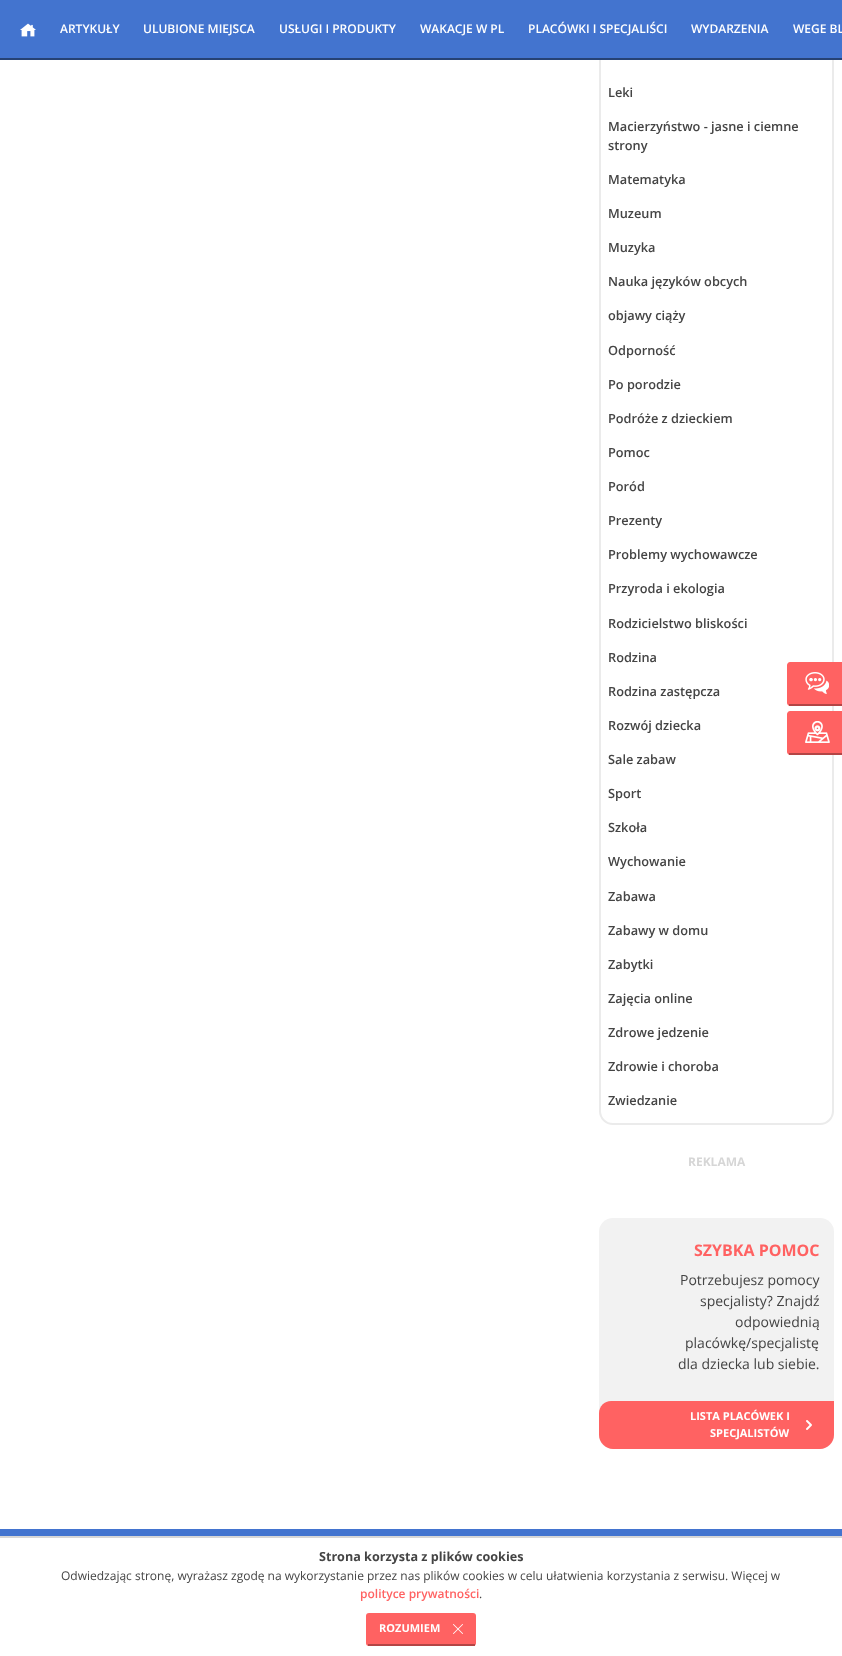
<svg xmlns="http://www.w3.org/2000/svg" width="842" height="1656">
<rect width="100%" height="100%" fill="#fff"/>
<rect x="600" y="-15" width="233" height="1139" rx="13" fill="none" stroke="#ebebeb" stroke-width="2"/>
<rect width="842" height="58" fill="#4374cf"/>
<rect y="58" width="842" height="2" fill="#264275"/>
<image x="20" y="23" width="16" height="14" href="media/1.png"/>
<text x="60" y="33" style="font-family:Open Sans;font-size:12px;font-weight:600;fill:#fff">ARTYKUŁY</text>
<text x="143" y="33" style="font-family:Open Sans;font-size:12px;font-weight:600;fill:#fff">ULUBIONE MIEJSCA</text>
<text x="279" y="33" style="font-family:Open Sans;font-size:12px;font-weight:600;fill:#fff">USŁUGI I PRODUKTY</text>
<text x="420" y="33" style="font-family:Open Sans;font-size:12px;font-weight:600;fill:#fff">WAKACJE W PL</text>
<text x="528" y="33" style="font-family:Open Sans;font-size:12px;font-weight:600;fill:#fff">PLACÓWKI I SPECJALIŚCI</text>
<text x="691" y="33" style="font-family:Open Sans;font-size:12px;font-weight:600;fill:#fff">WYDARZENIA</text>
<text x="793" y="33" style="font-family:Open Sans;font-size:12px;font-weight:600;fill:#fff">WEGE BL</text>
<text x="608" y="97" style="font-family:Open Sans;font-size:12.75px;font-weight:600;fill:#444">Leki</text>
<text x="608" y="131" style="font-family:Open Sans;font-size:12.75px;font-weight:600;fill:#444">Macierzyństwo - jasne i ciemne</text>
<text x="608" y="150" style="font-family:Open Sans;font-size:12.75px;font-weight:600;fill:#444">strony</text>
<text x="608" y="184" style="font-family:Open Sans;font-size:12.75px;font-weight:600;fill:#444">Matematyka</text>
<text x="608" y="218" style="font-family:Open Sans;font-size:12.75px;font-weight:600;fill:#444">Muzeum</text>
<text x="608" y="252" style="font-family:Open Sans;font-size:12.75px;font-weight:600;fill:#444">Muzyka</text>
<text x="608" y="286" style="font-family:Open Sans;font-size:12.75px;font-weight:600;fill:#444">Nauka języków obcych</text>
<text x="608" y="320" style="font-family:Open Sans;font-size:12.75px;font-weight:600;fill:#444">objawy ciąży</text>
<text x="608" y="355" style="font-family:Open Sans;font-size:12.75px;font-weight:600;fill:#444">Odporność</text>
<text x="608" y="389" style="font-family:Open Sans;font-size:12.75px;font-weight:600;fill:#444">Po porodzie</text>
<text x="608" y="423" style="font-family:Open Sans;font-size:12.75px;font-weight:600;fill:#444">Podróże z dzieckiem</text>
<text x="608" y="457" style="font-family:Open Sans;font-size:12.75px;font-weight:600;fill:#444">Pomoc</text>
<text x="608" y="491" style="font-family:Open Sans;font-size:12.75px;font-weight:600;fill:#444">Poród</text>
<text x="608" y="525" style="font-family:Open Sans;font-size:12.75px;font-weight:600;fill:#444">Prezenty</text>
<text x="608" y="559" style="font-family:Open Sans;font-size:12.75px;font-weight:600;fill:#444">Problemy wychowawcze</text>
<text x="608" y="593" style="font-family:Open Sans;font-size:12.75px;font-weight:600;fill:#444">Przyroda i ekologia</text>
<text x="608" y="628" style="font-family:Open Sans;font-size:12.75px;font-weight:600;fill:#444">Rodzicielstwo bliskości</text>
<text x="608" y="662" style="font-family:Open Sans;font-size:12.75px;font-weight:600;fill:#444">Rodzina</text>
<text x="608" y="696" style="font-family:Open Sans;font-size:12.75px;font-weight:600;fill:#444">Rodzina zastępcza</text>
<text x="608" y="730" style="font-family:Open Sans;font-size:12.75px;font-weight:600;fill:#444">Rozwój dziecka</text>
<text x="608" y="764" style="font-family:Open Sans;font-size:12.75px;font-weight:600;fill:#444">Sale zabaw</text>
<text x="608" y="798" style="font-family:Open Sans;font-size:12.75px;font-weight:600;fill:#444">Sport</text>
<text x="608" y="832" style="font-family:Open Sans;font-size:12.75px;font-weight:600;fill:#444">Szkoła</text>
<text x="608" y="866" style="font-family:Open Sans;font-size:12.75px;font-weight:600;fill:#444">Wychowanie</text>
<text x="608" y="901" style="font-family:Open Sans;font-size:12.75px;font-weight:600;fill:#444">Zabawa</text>
<text x="608" y="935" style="font-family:Open Sans;font-size:12.75px;font-weight:600;fill:#444">Zabawy w domu</text>
<text x="608" y="969" style="font-family:Open Sans;font-size:12.75px;font-weight:600;fill:#444">Zabytki</text>
<text x="608" y="1003" style="font-family:Open Sans;font-size:12.75px;font-weight:600;fill:#444">Zajęcia online</text>
<text x="608" y="1037" style="font-family:Open Sans;font-size:12.75px;font-weight:600;fill:#444">Zdrowe jedzenie</text>
<text x="608" y="1071" style="font-family:Open Sans;font-size:12.75px;font-weight:600;fill:#444">Zdrowie i choroba</text>
<text x="608" y="1105" style="font-family:Open Sans;font-size:12.75px;font-weight:600;fill:#444">Zwiedzanie</text>
<text x="688" y="1166" style="font-family:Open Sans;font-size:12px;font-weight:bold;fill:#d6d6d6">REKLAMA</text>
<rect x="599" y="1218" width="235" height="231" rx="14" fill="#f2f2f2"/>
<text x="694" y="1256" style="font-family:Open Sans;font-size:16px;font-weight:bold;fill:#ff6262">SZYBKA POMOC</text>
<text x="680" y="1285" style="font-family:Open Sans;font-size:14px;fill:#444">Potrzebujesz pomocy</text>
<text x="700" y="1306" style="font-family:Open Sans;font-size:14px;fill:#444">specjalisty? Znajdź</text>
<text x="735" y="1327" style="font-family:Open Sans;font-size:14px;fill:#444">odpowiednią</text>
<text x="685" y="1348" style="font-family:Open Sans;font-size:14px;fill:#444">placówkę/specjalistę</text>
<text x="678" y="1369" style="font-family:Open Sans;font-size:14px;fill:#444">dla dziecka lub siebie.</text>
<path d="M611 1401h223v34c0 7.5-6.5 14-14 14h-207c-7.5 0-14-6.5-14-14v-22c0-6.5 5.5-12 12-12z" fill="#ff6262"/>
<text x="690" y="1420" style="font-family:Open Sans;font-size:11px;font-weight:bold;fill:#fff">LISTA PLACÓWEK I</text>
<image x="806" y="1420" width="6" height="10" href="media/2.png"/>
<text x="710" y="1437" style="font-family:Open Sans;font-size:11px;font-weight:bold;fill:#fff">SPECJALISTÓW</text>
<path d="M790 662h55v44h-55c-1.5 0-3-1.5-3-3v-38c0-1.5 1.5-3 3-3z" fill="#ff6262"/>
<rect x="789" y="704" width="53" height="2" fill="#b44545"/>
<image x="805" y="672" width="24" height="22" href="media/3.png"/>
<path d="M790 711h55v44h-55c-1.5 0-3-1.5-3-3v-38c0-1.5 1.5-3 3-3z" fill="#ff6262"/>
<rect x="789" y="753" width="53" height="2" fill="#b44545"/>
<image x="805" y="721" width="25" height="22" href="media/4.png"/>
<rect y="1529" width="842" height="7" fill="#4374cf"/>
<rect y="1536" width="842" height="2" fill="#d6d6d6"/>
<text x="319" y="1561" style="font-family:Open Sans;font-size:12.6px;font-weight:bold;fill:#444">Strona korzysta z plików cookies</text>
<text x="61" y="1580" style="font-family:Open Sans;font-size:12px;fill:#444">Odwiedzając stronę, wyrażasz zgodę na wykorzystanie przez nas plików cookies w celu ułatwienia korzystania z serwisu. Więcej w</text>
<text x="360" y="1598" style="font-family:Open Sans;font-size:12px;font-weight:600;fill:#ff6262">polityce prywatności</text>
<text x="479" y="1598" style="font-family:Open Sans;font-size:12px;fill:#444">.</text>
<rect x="366" y="1613" width="110" height="33" rx="3" fill="#ff6262"/>
<rect x="368" y="1644" width="107" height="2" fill="#b44545"/>
<text x="379" y="1632" style="font-family:Open Sans;font-size:11px;font-weight:bold;fill:#fff">ROZUMIEM</text>
<image x="453" y="1624" width="10" height="10" href="media/5.png"/>
</svg>
